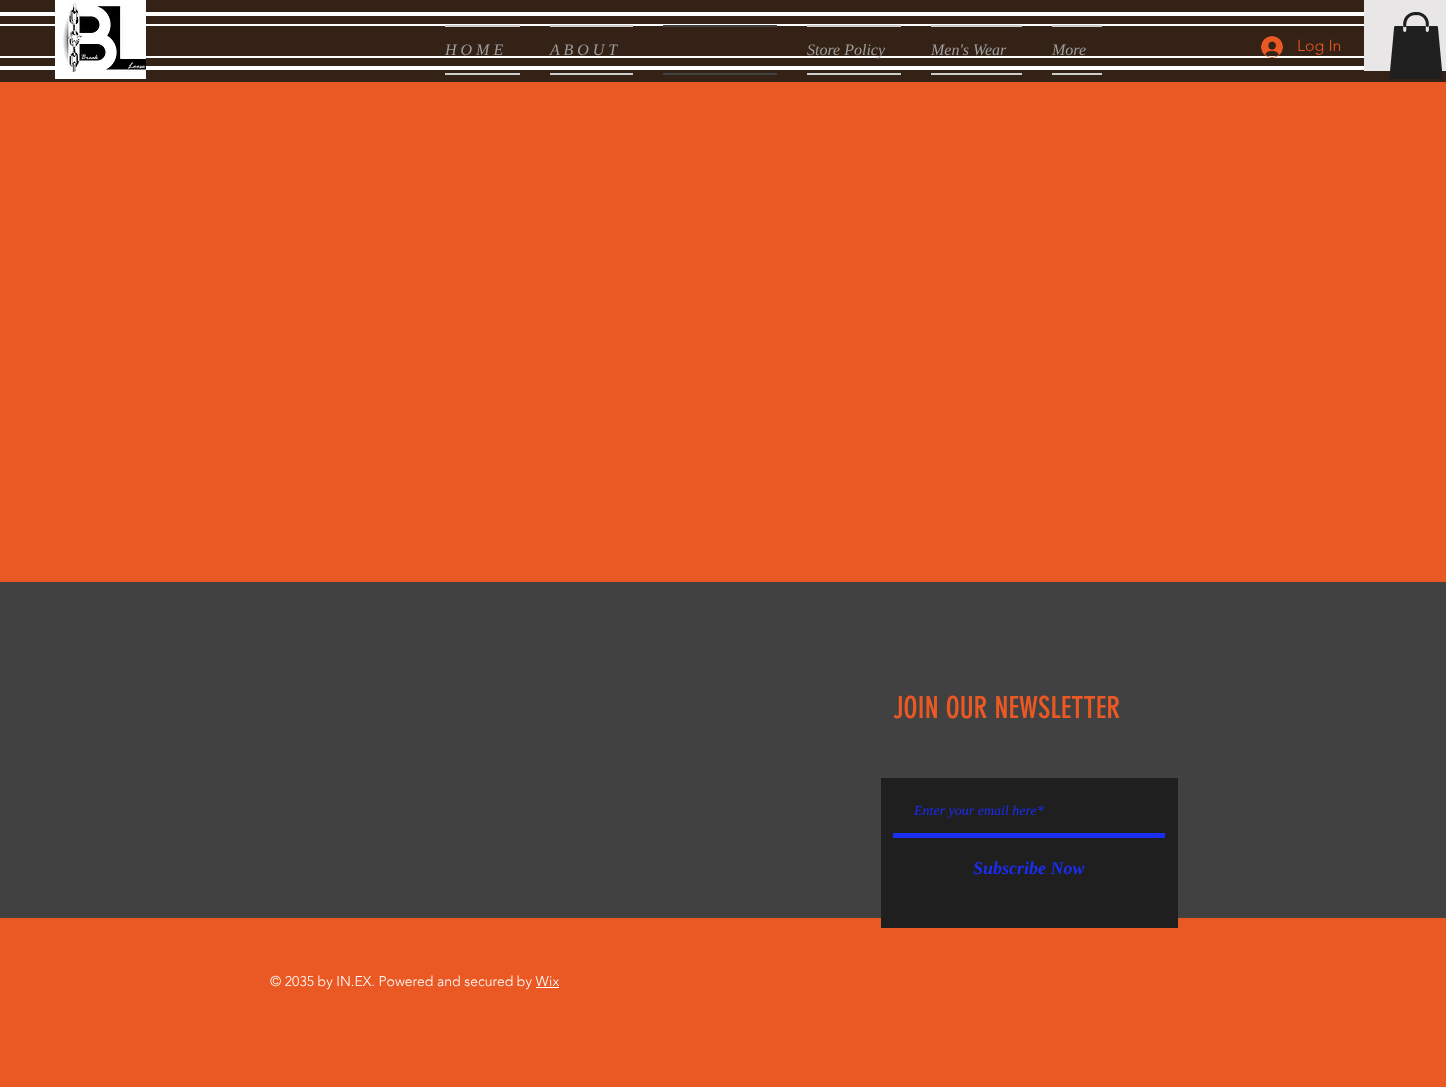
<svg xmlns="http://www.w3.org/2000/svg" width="1446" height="1087">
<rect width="100%" height="100%" fill="#ea5823"/>
<rect width="1446" height="82" fill="#342216"/>
<rect y="12" width="1364" height="4" fill="#fff"/>
<rect y="66" width="1364" height="4" fill="#fff"/>
<rect y="24" width="1364" height="2" fill="#fff"/>
<rect y="56" width="1364" height="2" fill="#fff"/>
<image x="55" y="0" width="91" height="79" href="media/1.png"/>
<rect x="445" y="25" width="75" height="2" fill="#ccc"/>
<rect x="445" y="73" width="75" height="2" fill="#ccc"/>
<text x="445" y="55" style="font-family:Liberation Serif;font-size:16px;font-style:italic;fill:#9e9e9e">H O M E</text>
<rect x="550" y="25" width="83" height="2" fill="#ccc"/>
<rect x="550" y="73" width="83" height="2" fill="#ccc"/>
<text x="550" y="55" style="font-family:Liberation Serif;font-size:16px;font-style:italic;fill:#9e9e9e">A B O U T</text>
<rect x="663" y="25" width="114" height="2" fill="#414141"/>
<rect x="663" y="73" width="114" height="2" fill="#414141"/>
<rect x="807" y="25" width="94" height="2" fill="#ccc"/>
<rect x="807" y="73" width="94" height="2" fill="#ccc"/>
<text x="807" y="55" style="font-family:Liberation Serif;font-size:16px;font-style:italic;fill:#9e9e9e">Store Policy</text>
<rect x="931" y="25" width="91" height="2" fill="#ccc"/>
<rect x="931" y="73" width="91" height="2" fill="#ccc"/>
<text x="931" y="55" style="font-family:Liberation Serif;font-size:16px;font-style:italic;fill:#9e9e9e">Men's Wear</text>
<rect x="1052" y="25" width="50" height="2" fill="#ccc"/>
<rect x="1052" y="73" width="50" height="2" fill="#ccc"/>
<text x="1052" y="55" style="font-family:Liberation Serif;font-size:16px;font-style:italic;fill:#9e9e9e">More</text>
<image x="1261" y="36" width="22" height="22" href="media/2.png"/>
<text x="1297" y="51" style="font-family:'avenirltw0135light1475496';font-size:16px;font-weight:300;fill:#ea5823">Log In</text>
<rect x="1364" width="82" height="71" fill="#e8e6e6"/>
<image x="1389" y="12" width="54" height="67" href="media/3.png"/>
<rect y="582" width="1446" height="336" fill="#414141"/>
<text x="893" y="718" style="font-family:'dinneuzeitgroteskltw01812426';font-size:30px;fill:#ea5823">JOIN OUR NEWSLETTER</text>
<rect x="881" y="778" width="297" height="150" fill="#1f1f1f"/>
<rect x="893" y="833" width="272" height="5" fill="#1a2df3"/>
<text x="914" y="815" style="font-family:Liberation Serif;font-size:14px;font-style:italic;fill:#1a2df3">Enter your email here*</text>
<text x="973" y="874" style="font-family:Liberation Serif;font-size:18px;font-weight:bold;font-style:italic;fill:#1a2df3">Subscribe Now</text>
<text x="270" y="986" style="font-family:'avenirltw0135light1475496';font-size:14px;font-weight:300;fill:#fff">© 2035 by IN.EX. Powered and secured by Wix</text>
<rect x="536" y="987" width="23" height="1" fill="#fff"/>
</svg>
